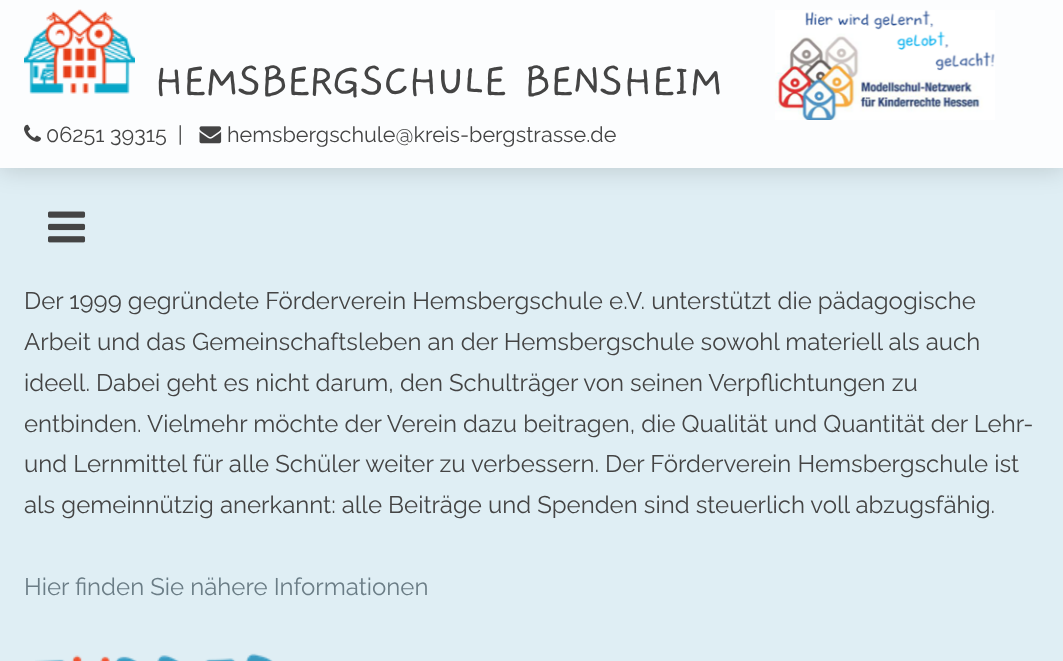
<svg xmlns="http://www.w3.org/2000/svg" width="1063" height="661">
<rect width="100%" height="100%" fill="#dfeef4"/>
<rect y="2" width="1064" height="168" fill="#00000026" filter="blur(12px)"/>
<rect width="1063" height="168" fill="#fcfdfe"/>
<image x="24" y="9" width="111" height="85" href="media/1.png"/>
<text x="154" y="94" style="font-family:Gaegu;font-size:48px;letter-spacing:-1.5px;fill:#444">HEMSBERGSCHULE BENSHEIM</text>
<image x="24" y="124" width="17" height="18" href="media/2.png"/>
<text x="46" y="142" style="font-family:Raleway;font-size:21.6px;fill:#444" xml:space="preserve">06251 39315  |</text>
<image x="199" y="126" width="23" height="18" href="media/3.png"/>
<text x="227" y="142" style="font-family:Raleway;font-size:21.6px;fill:#444">hemsbergschule@kreis-bergstrasse.de</text>
<image x="775" y="10" width="220" height="110" href="media/4.png"/>
<image x="48" y="211" width="38" height="32" href="media/5.png"/>
<text x="24" y="309" style="font-family:Raleway;font-size:24px;fill:#444">Der 1999 gegründete Förderverein Hemsbergschule e.V. unterstützt die pädagogische</text>
<text x="24" y="350" style="font-family:Raleway;font-size:24px;fill:#444">Arbeit und das Gemeinschaftsleben an der Hemsbergschule sowohl materiell als auch</text>
<text x="24" y="391" style="font-family:Raleway;font-size:24px;fill:#444">ideell. Dabei geht es nicht darum, den Schulträger von seinen Verpflichtungen zu</text>
<text x="24" y="432" style="font-family:Raleway;font-size:24px;fill:#444">entbinden. Vielmehr möchte der Verein dazu beitragen, die Qualität und Quantität der Lehr-</text>
<text x="24" y="472" style="font-family:Raleway;font-size:24px;fill:#444">und Lernmittel für alle Schüler weiter zu verbessern. Der Förderverein Hemsbergschule ist</text>
<text x="24" y="513" style="font-family:Raleway;font-size:24px;fill:#444">als gemeinnützig anerkannt: alle Beiträge und Spenden sind steuerlich voll abzugsfähig.</text>
<text x="24" y="595" style="font-family:Raleway;font-size:24px;fill:#6b7d86">Hier finden Sie nähere Informationen</text>
<image x="35" y="653" width="238" height="8" href="media/6.png"/>
</svg>
